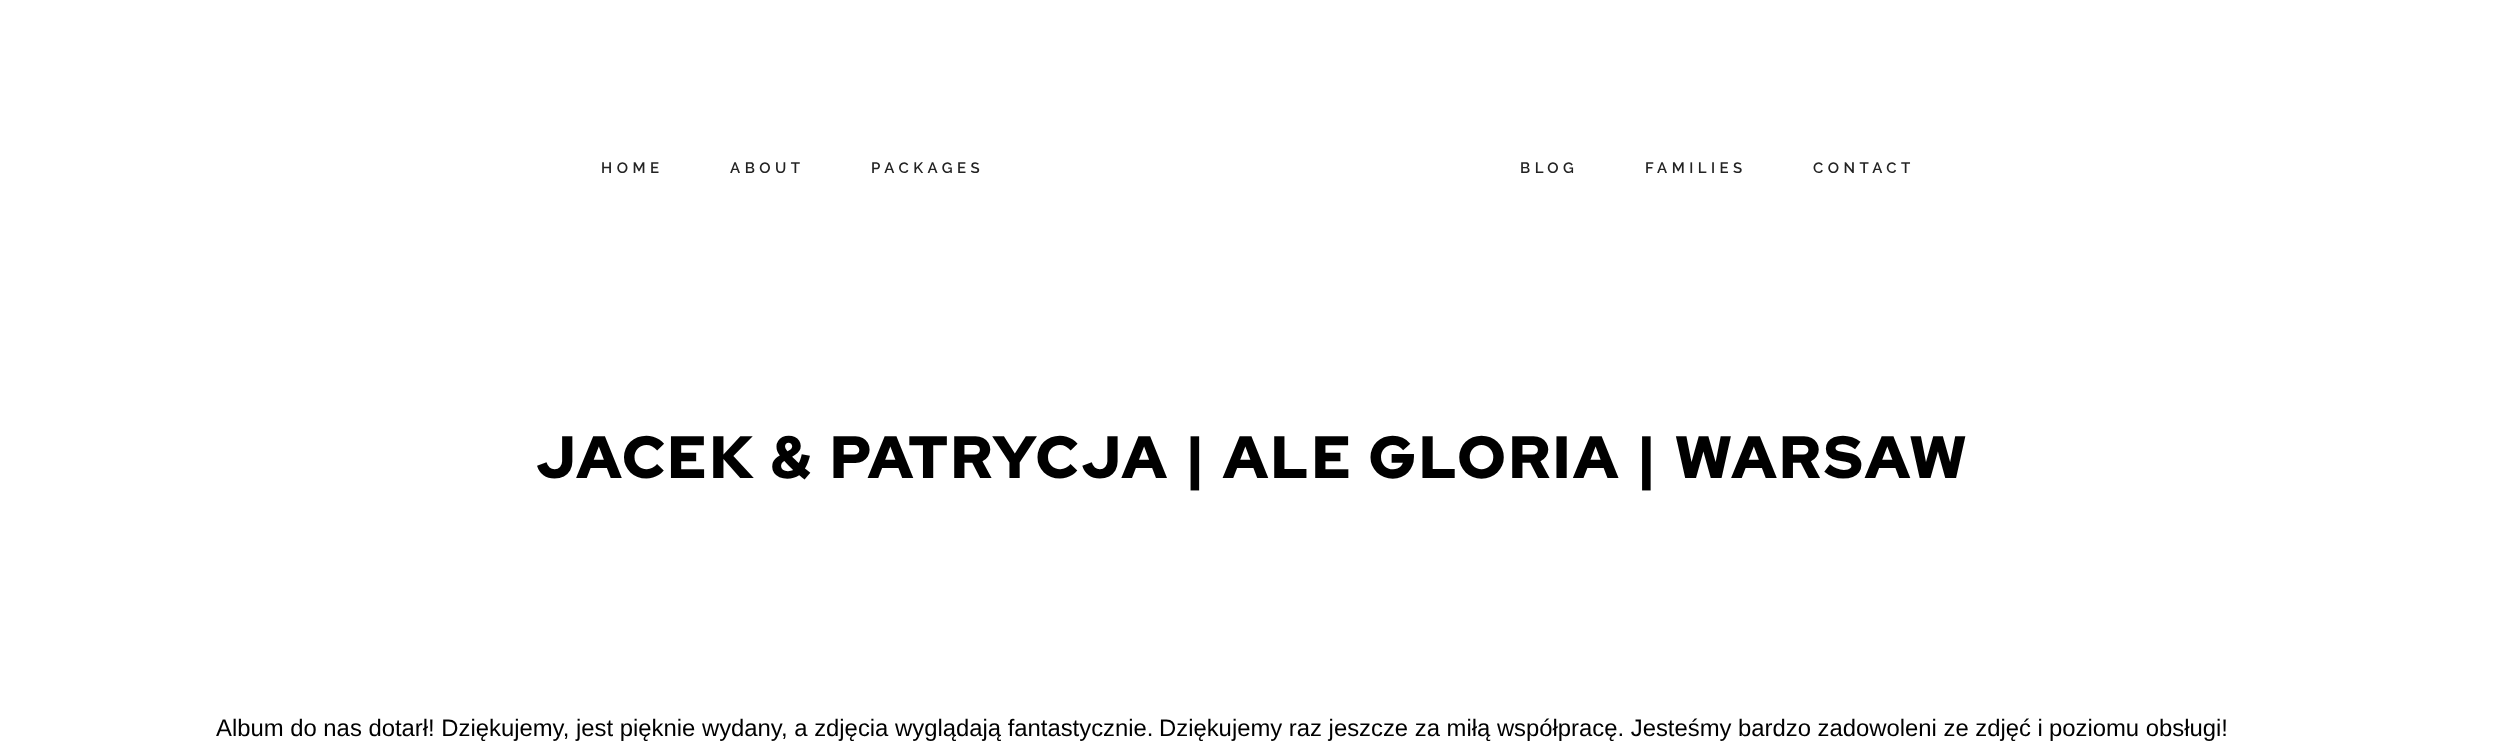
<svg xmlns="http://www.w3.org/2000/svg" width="2503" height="755">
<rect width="100%" height="100%" fill="#fff"/>
<text x="601" y="173" style="font-family:Raleway;font-size:15px;font-weight:600;letter-spacing:4.5px;fill:#232323">HOME</text>
<text x="730" y="173" style="font-family:Raleway;font-size:15px;font-weight:600;letter-spacing:4.5px;fill:#232323">ABOUT</text>
<text x="871" y="173" style="font-family:Raleway;font-size:15px;font-weight:600;letter-spacing:4.5px;fill:#232323">PACKAGES</text>
<text x="1520" y="173" style="font-family:Raleway;font-size:15px;font-weight:600;letter-spacing:4.5px;fill:#232323">BLOG</text>
<text x="1645" y="173" style="font-family:Raleway;font-size:15px;font-weight:600;letter-spacing:4.5px;fill:#232323">FAMILIES</text>
<text x="1813" y="173" style="font-family:Raleway;font-size:15px;font-weight:600;letter-spacing:4.5px;fill:#232323">CONTACT</text>
<text x="536" y="478" style="font-family:Red Hat Display;font-size:59.6px;font-weight:900;letter-spacing:3px;fill:#000">JACEK &amp; PATRYCJA | ALE GLORIA | WARSAW</text>
<text x="216" y="736" style="font-family:Liberation Sans;font-size:23.85px;fill:#000">Album do nas dotarł! Dziękujemy, jest pięknie wydany, a zdjęcia wyglądają fantastycznie.</text>
<text x="1159" y="736" style="font-family:Liberation Sans;font-size:23.85px;fill:#000">Dziękujemy raz jeszcze za miłą współpracę. Jesteśmy bardzo zadowoleni ze zdjęć i</text>
<text x="2049" y="736" style="font-family:Liberation Sans;font-size:23.85px;fill:#000">poziomu obsługi!</text>
</svg>
